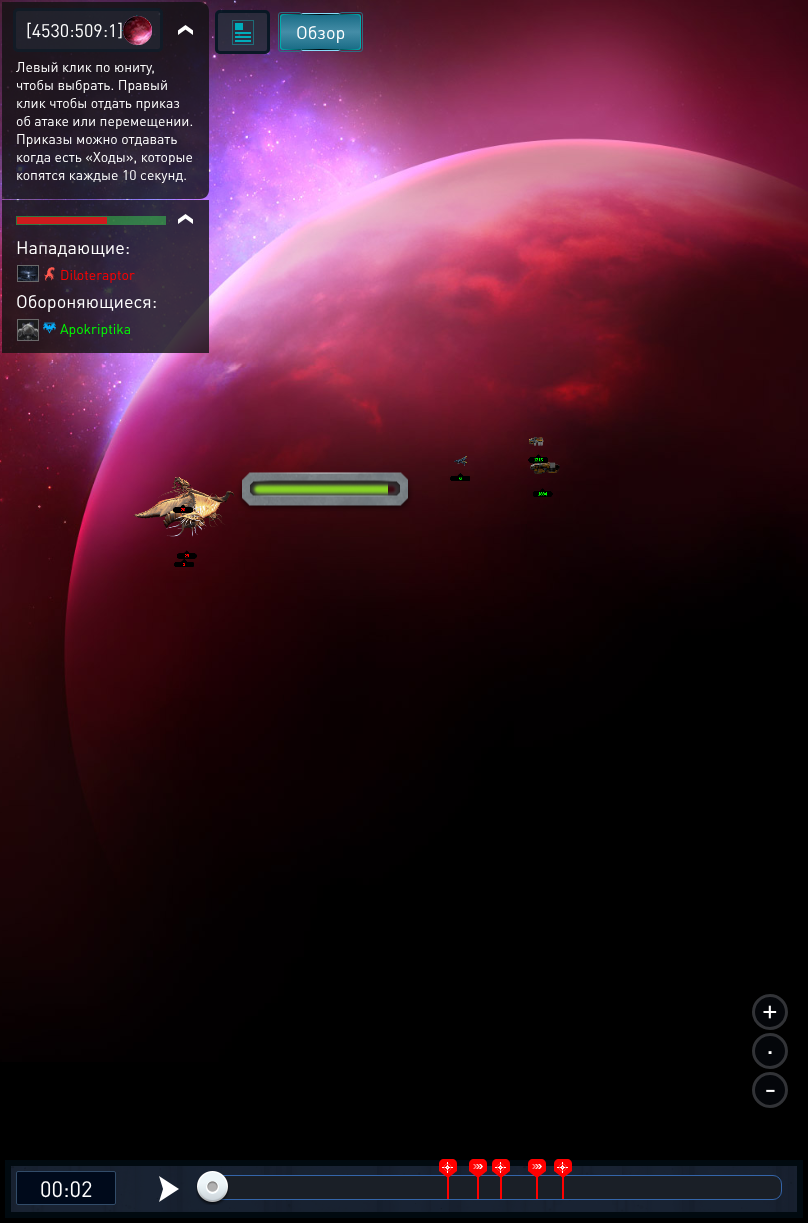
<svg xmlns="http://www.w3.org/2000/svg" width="808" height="1223">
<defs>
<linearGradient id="g1" gradientUnits="userSpaceOnUse" x1="280" y1="32" x2="361" y2="32"><stop offset="0" stop-color="#02afaf"/><stop offset="0.5" stop-color="#00030a"/><stop offset="1" stop-color="#02afaf"/></linearGradient>
<linearGradient id="g2" gradientUnits="userSpaceOnUse" x1="321" y1="15" x2="321" y2="49"><stop offset="0" stop-color="#1a6d87"/><stop offset="0.5" stop-color="#458da7"/><stop offset="1" stop-color="#1a6d87"/></linearGradient>
</defs>
<rect width="100%" height="100%" fill="#000"/>
<image x="0" y="0" width="808" height="1062" href="media/1.png"/>
<path d="M2 2h198c5 0 9 4 9 9v179c0 5-4 9-9 9h-198z" fill="#111111cc"/>
<rect x="13" y="8" width="150" height="44" rx="5" fill="#252f3b80"/>
<rect x="14.5" y="9.5" width="147" height="41" rx="3.5" fill="none" stroke="#01131f80" stroke-width="3"/>
<text x="26" y="37" style="font-family:DIN;font-size:18px;fill:#fff">[4530:509:1]</text>
<image x="121" y="15" width="31" height="31" href="media/2.png"/>
<image x="123" y="16" width="29" height="29" href="media/3.png"/>
<image x="178" y="25" width="15" height="10" href="media/4.png"/>
<text x="16" y="72" style="font-family:DIN;font-size:14px;fill:#fff">Левый клик по юниту,</text>
<text x="16" y="90" style="font-family:DIN;font-size:14px;fill:#fff">чтобы выбрать. Правый</text>
<text x="16" y="108" style="font-family:DIN;font-size:14px;fill:#fff">клик чтобы отдать приказ</text>
<text x="16" y="126" style="font-family:DIN;font-size:14px;fill:#fff">об атаке или перемещении.</text>
<text x="16" y="144" style="font-family:DIN;font-size:14px;fill:#fff">Приказы можно отдавать</text>
<text x="16" y="162" style="font-family:DIN;font-size:14px;fill:#fff">когда есть «Ходы», которые</text>
<text x="16" y="180" style="font-family:DIN;font-size:14px;fill:#fff">копятся каждые 10 секунд.</text>
<rect x="2" y="200" width="207" height="153" fill="#111111cc"/>
<rect x="16" y="216" width="150" height="9" fill="#3acf5180"/>
<rect x="17" y="217" width="90" height="7" fill="#ce1b1e"/>
<image x="178" y="214" width="15" height="10" href="media/5.png"/>
<text x="16" y="254" style="font-family:DIN;font-size:18px;fill:#fff">Нападающие:</text>
<rect x="17.5" y="265.5" width="21" height="16" fill="none" stroke="#6f6f6fed"/>
<image x="18" y="266" width="20" height="15" href="media/6.png"/>
<image x="44" y="267" width="11" height="14" href="media/7.png"/>
<text x="60" y="280" style="font-family:DIN;font-size:14px;fill:#f00">Diloteraptor</text>
<text x="16" y="308" style="font-family:DIN;font-size:18px;fill:#fff">Обороняющиеся:</text>
<rect x="17.5" y="319.5" width="21" height="21" fill="none" stroke="#6f6f6fed"/>
<image x="18" y="320" width="20" height="20" href="media/8.png"/>
<image x="43" y="322" width="13" height="12" href="media/9.png"/>
<text x="60" y="334" style="font-family:DIN;font-size:14px;fill:#0f0">Apokriptika</text>
<rect x="215" y="10" width="55" height="44" rx="5" fill="#252f3bcc"/>
<image x="232" y="20" width="22" height="25" href="media/10.png"/>
<rect x="216.5" y="11.5" width="52" height="41" rx="3.5" fill="none" stroke="#01131fcc" stroke-width="3"/>
<rect x="300.5" y="13.5" width="40" height="37" rx="2.5" fill="none" stroke="#89dcfa"/>
<rect x="280" y="14" width="81" height="36" rx="3" fill="url(#g1)"/>
<rect x="278.5" y="12.5" width="23" height="39" rx="2.5" fill="none" stroke="#2e6b80"/>
<rect x="339.5" y="12.5" width="23" height="39" rx="2.5" fill="none" stroke="#2e6b80"/>
<rect x="281" y="15" width="79" height="34" rx="3" fill="url(#g2)"/>
<text x="296" y="39" style="font-family:DIN;font-size:18px;fill:#fff">Обзор</text>
<circle cx="770" cy="1012" r="18" fill="#04060a"/>
<circle cx="770" cy="1012" r="16.5" fill="none" stroke="#ebebeb33" stroke-width="3"/>
<text x="762" y="1020" style="font-family:DIN;font-size:30px;fill:#fff">+</text>
<circle cx="770" cy="1051" r="18" fill="#04060a"/>
<circle cx="770" cy="1051" r="16.5" fill="none" stroke="#ebebeb33" stroke-width="3"/>
<text x="766" y="1054" style="font-family:DIN;font-size:30px;fill:#fff">.</text>
<circle cx="770" cy="1090" r="18" fill="#04060a"/>
<circle cx="770" cy="1090" r="16.5" fill="none" stroke="#ebebeb33" stroke-width="3"/>
<text x="764" y="1099" style="font-family:DIN;font-size:30px;fill:#fff">-</text>
<rect x="8" y="1163" width="792" height="52" fill="none" stroke="#010a10" stroke-width="6"/>
<image x="11" y="1166" width="786" height="46" href="media/15.png"/>
<image x="159" y="1176" width="20" height="26" href="media/11.png"/>
<rect x="206.5" y="1175.5" width="575" height="24" rx="8.5" fill="#1a1f27" stroke="#3465a9"/>
<image x="196" y="1171" width="33" height="34" href="media/12.png"/>
<rect x="447" y="1176" width="2" height="23" fill="#f00"/>
<path d="M444 1159h8c3 0 5 2 5 5v7h-18v-7c0-3 2-5 5-5z" fill="#f00"/>
<path d="M439 1171h18l-9 7z" fill="#f00"/>
<image x="442" y="1162" width="11" height="11" href="media/13.png"/>
<rect x="477" y="1176" width="2" height="23" fill="#f00"/>
<path d="M474 1159h8c3 0 5 2 5 5v7h-18v-7c0-3 2-5 5-5z" fill="#f00"/>
<image x="473" y="1164" width="10" height="5" href="media/14.png"/>
<path d="M469 1171h18l-9 7z" fill="#f00"/>
<rect x="500" y="1176" width="2" height="23" fill="#f00"/>
<path d="M497 1159h8c3 0 5 2 5 5v7h-18v-7c0-3 2-5 5-5z" fill="#f00"/>
<path d="M492 1171h18l-9 7z" fill="#f00"/>
<image x="495" y="1162" width="11" height="11" href="media/13.png"/>
<rect x="536" y="1176" width="2" height="23" fill="#f00"/>
<path d="M533 1159h8c3 0 5 2 5 5v7h-18v-7c0-3 2-5 5-5z" fill="#f00"/>
<image x="532" y="1164" width="10" height="5" href="media/14.png"/>
<path d="M528 1171h18l-9 7z" fill="#f00"/>
<rect x="562" y="1176" width="2" height="23" fill="#f00"/>
<path d="M559 1159h8c3 0 5 2 5 5v7h-18v-7c0-3 2-5 5-5z" fill="#f00"/>
<path d="M554 1171h18l-9 7z" fill="#f00"/>
<image x="557" y="1162" width="11" height="11" href="media/13.png"/>
<rect x="16.5" y="1171.5" width="99" height="33" rx="1.5" fill="#000a1b" stroke="#324c69"/>
<text x="40" y="1197" style="font-family:DIN;font-size:22px;fill:#fff">00:02</text>
</svg>
